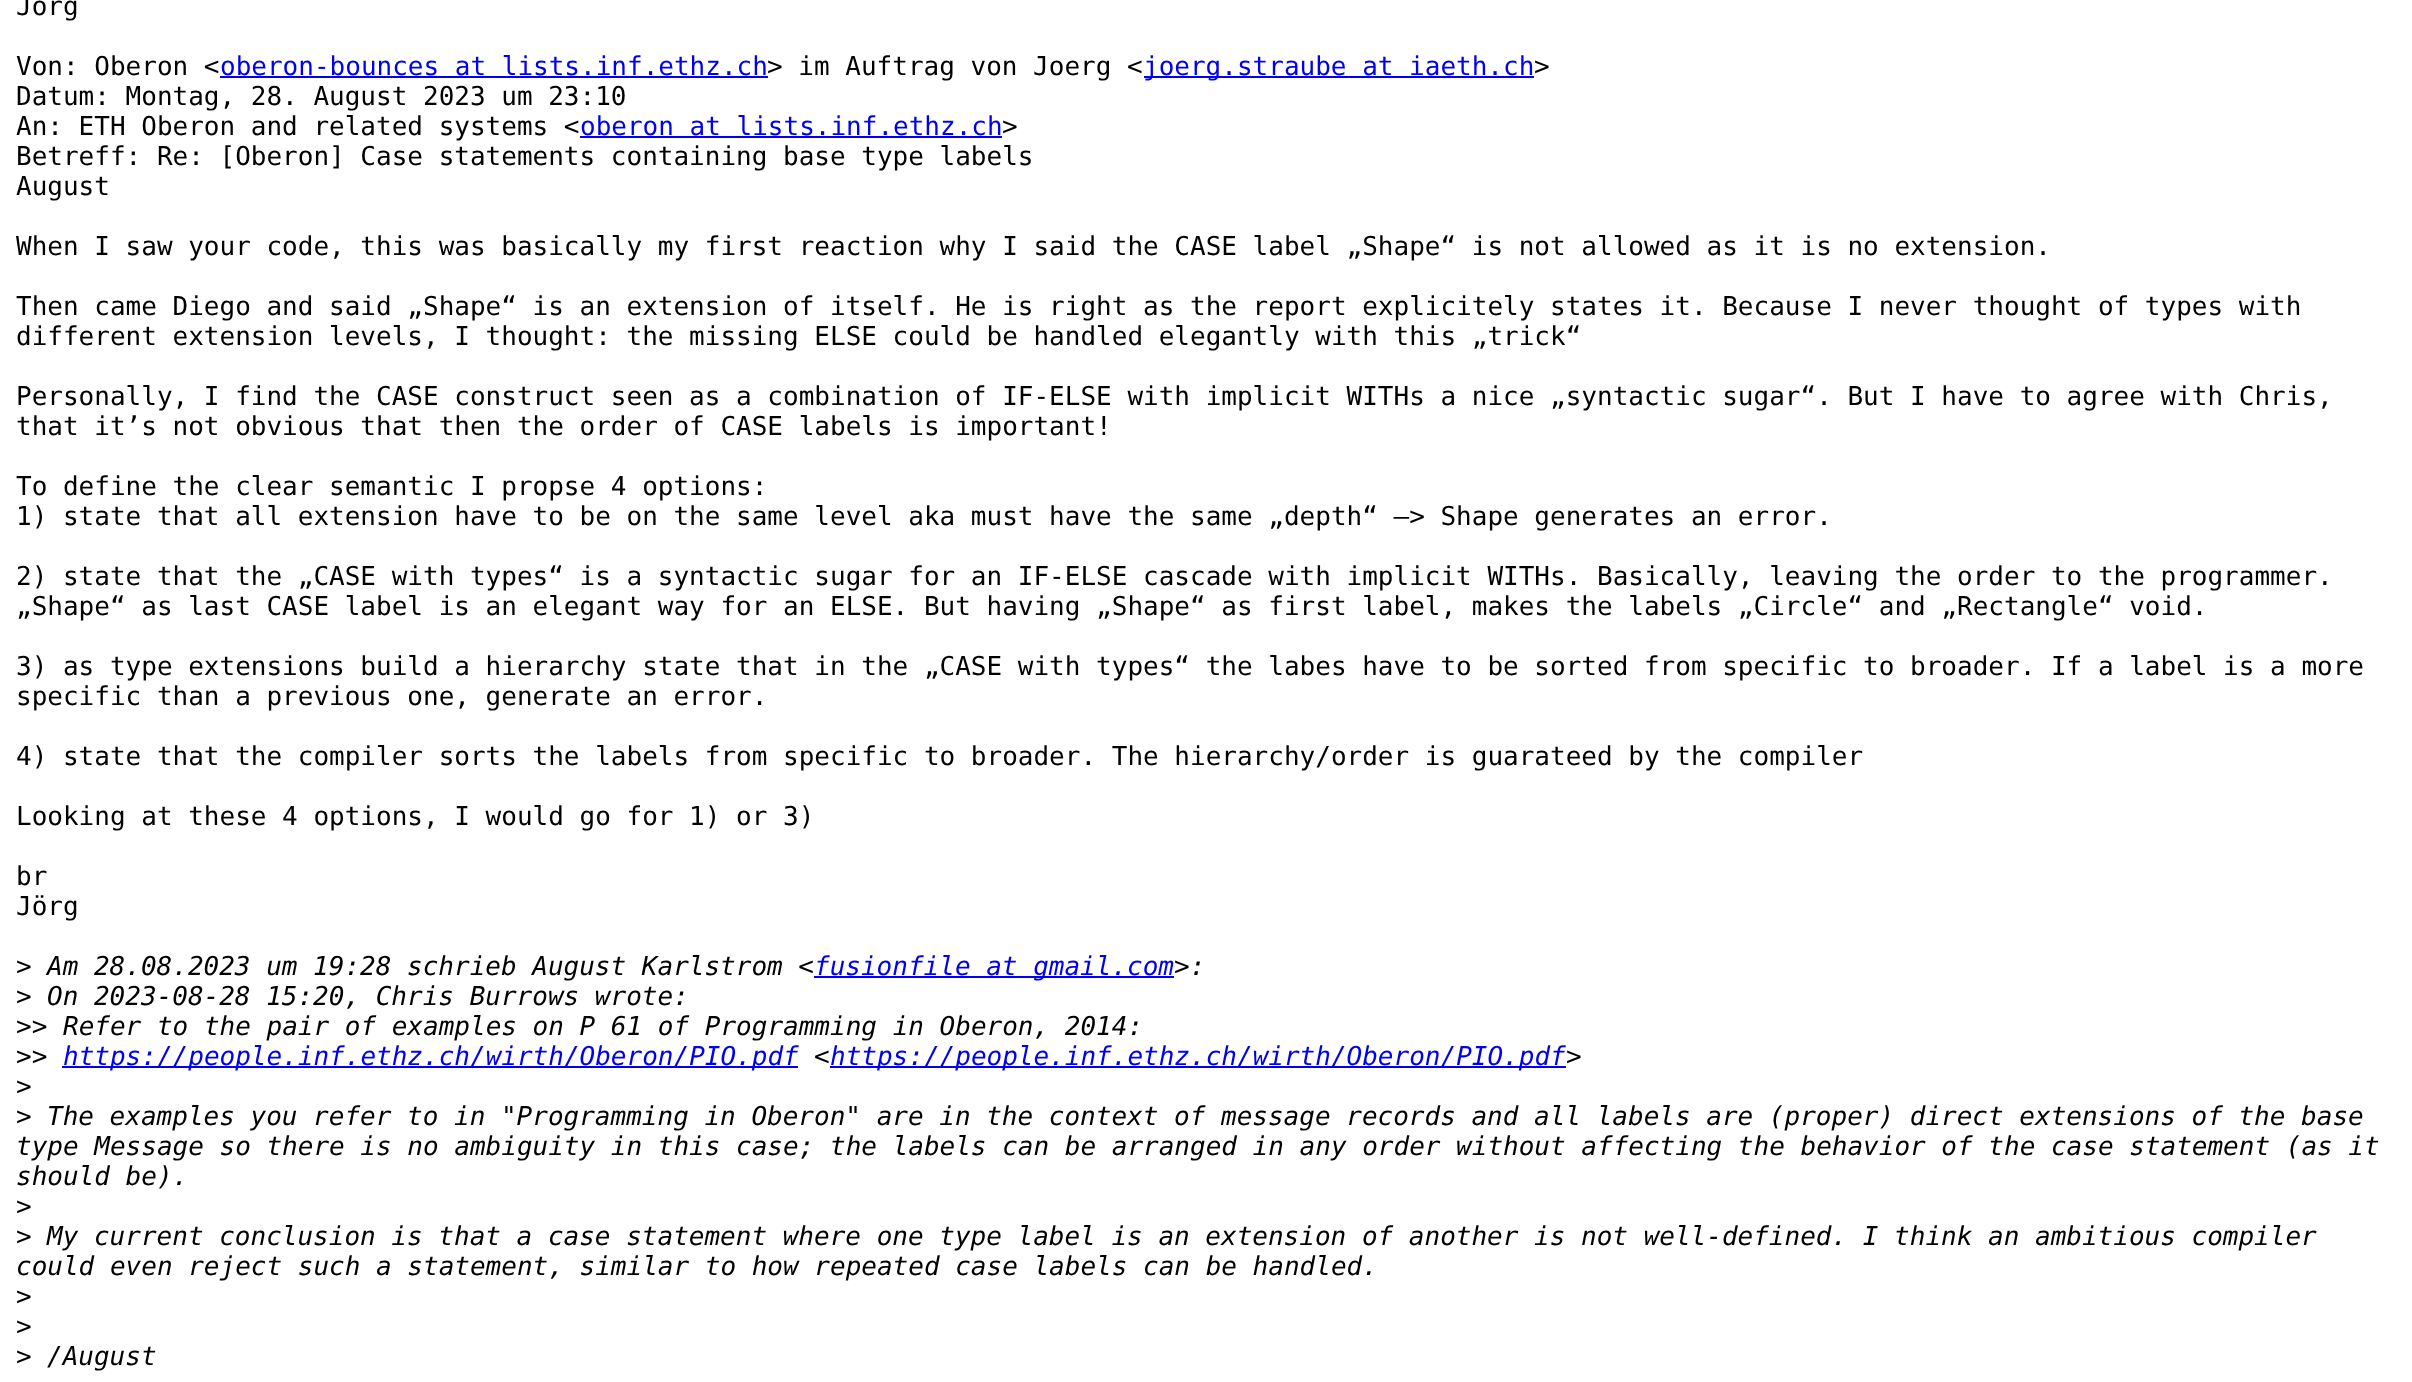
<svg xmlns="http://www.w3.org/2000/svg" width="2412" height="1382">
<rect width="100%" height="100%" fill="#fff"/>
<text x="16" y="15" style="font-family:DejaVu Sans Mono;font-size:26px;fill:#000">Jörg</text>
<text x="16" y="75" style="font-family:DejaVu Sans Mono;font-size:26px;fill:#000">Von: Oberon &lt;</text>
<text x="220" y="75" style="font-family:DejaVu Sans Mono;font-size:26px;fill:#00e">oberon-bounces at lists.inf.ethz.ch</text>
<rect x="220" y="76" width="548" height="2" fill="#00e"/>
<text x="767" y="75" style="font-family:DejaVu Sans Mono;font-size:26px;fill:#000">&gt; im Auftrag von Joerg &lt;</text>
<rect x="1144" y="76" width="390" height="2" fill="#00e"/>
<text x="1143" y="75" style="font-family:DejaVu Sans Mono;font-size:26px;fill:#00e">joerg.straube at iaeth.ch</text>
<text x="1534" y="75" style="font-family:DejaVu Sans Mono;font-size:26px;fill:#000">&gt;</text>
<text x="16" y="105" style="font-family:DejaVu Sans Mono;font-size:26px;fill:#000">Datum: Montag, 28. August 2023 um 23:10</text>
<text x="16" y="135" style="font-family:DejaVu Sans Mono;font-size:26px;fill:#000">An: ETH Oberon and related systems &lt;</text>
<text x="580" y="135" style="font-family:DejaVu Sans Mono;font-size:26px;fill:#00e">oberon at lists.inf.ethz.ch</text>
<rect x="580" y="136" width="422" height="2" fill="#00e"/>
<text x="1002" y="135" style="font-family:DejaVu Sans Mono;font-size:26px;fill:#000">&gt;</text>
<text x="16" y="165" style="font-family:DejaVu Sans Mono;font-size:26px;fill:#000">Betreff: Re: [Oberon] Case statements containing base type labels</text>
<text x="16" y="195" style="font-family:DejaVu Sans Mono;font-size:26px;fill:#000">August</text>
<text x="16" y="255" style="font-family:DejaVu Sans Mono;font-size:26px;fill:#000">When I saw your code, this was basically my first reaction why I said the CASE label „Shape“ is not allowed as it is no extension.</text>
<text x="16" y="315" style="font-family:DejaVu Sans Mono;font-size:26px;fill:#000">Then came Diego and said „Shape“ is an extension of itself. He is right as the report explicitely states it. Because I never thought of types with</text>
<text x="16" y="345" style="font-family:DejaVu Sans Mono;font-size:26px;fill:#000">different extension levels, I thought: the missing ELSE could be handled elegantly with this „trick“</text>
<text x="16" y="405" style="font-family:DejaVu Sans Mono;font-size:26px;fill:#000">Personally, I find the CASE construct seen as a combination of IF-ELSE with implicit WITHs a nice „syntactic sugar“. But I have to agree with Chris,</text>
<text x="16" y="435" style="font-family:DejaVu Sans Mono;font-size:26px;fill:#000">that it’s not obvious that then the order of CASE labels is important!</text>
<text x="16" y="495" style="font-family:DejaVu Sans Mono;font-size:26px;fill:#000">To define the clear semantic I propse 4 options:</text>
<text x="16" y="525" style="font-family:DejaVu Sans Mono;font-size:26px;fill:#000">1) state that all extension have to be on the same level aka must have the same „depth“ —&gt; Shape generates an error.</text>
<text x="16" y="585" style="font-family:DejaVu Sans Mono;font-size:26px;fill:#000">2) state that the „CASE with types“ is a syntactic sugar for an IF-ELSE cascade with implicit WITHs. Basically, leaving the order to the programmer.</text>
<text x="16" y="615" style="font-family:DejaVu Sans Mono;font-size:26px;fill:#000">„Shape“ as last CASE label is an elegant way for an ELSE. But having „Shape“ as first label, makes the labels „Circle“ and „Rectangle“ void.</text>
<text x="16" y="675" style="font-family:DejaVu Sans Mono;font-size:26px;fill:#000">3) as type extensions build a hierarchy state that in the „CASE with types“ the labes have to be sorted from specific to broader. If a label is a more</text>
<text x="16" y="705" style="font-family:DejaVu Sans Mono;font-size:26px;fill:#000">specific than a previous one, generate an error.</text>
<text x="16" y="765" style="font-family:DejaVu Sans Mono;font-size:26px;fill:#000">4) state that the compiler sorts the labels from specific to broader. The hierarchy/order is guarateed by the compiler</text>
<text x="16" y="825" style="font-family:DejaVu Sans Mono;font-size:26px;fill:#000">Looking at these 4 options, I would go for 1) or 3)</text>
<text x="16" y="885" style="font-family:DejaVu Sans Mono;font-size:26px;fill:#000">br</text>
<text x="16" y="915" style="font-family:DejaVu Sans Mono;font-size:26px;fill:#000">Jörg</text>
<text x="16" y="975" style="font-family:DejaVu Sans Mono;font-size:26px;fill:#000">&gt;</text>
<text x="47" y="975" style="font-family:DejaVu Sans Mono;font-size:26px;font-style:italic;fill:#000">Am 28.08.2023 um 19:28 schrieb August Karlstrom &lt;</text>
<rect x="814" y="976" width="360" height="2" fill="#00e"/>
<text x="814" y="975" style="font-family:DejaVu Sans Mono;font-size:26px;font-style:italic;fill:#00e">fusionfile at gmail.com</text>
<text x="1174" y="975" style="font-family:DejaVu Sans Mono;font-size:26px;font-style:italic;fill:#000">&gt;:</text>
<text x="16" y="1005" style="font-family:DejaVu Sans Mono;font-size:26px;fill:#000">&gt;</text>
<text x="47" y="1005" style="font-family:DejaVu Sans Mono;font-size:26px;font-style:italic;fill:#000">On 2023-08-28 15:20, Chris Burrows wrote:</text>
<text x="16" y="1035" style="font-family:DejaVu Sans Mono;font-size:26px;fill:#000">&gt;&gt;</text>
<text x="63" y="1035" style="font-family:DejaVu Sans Mono;font-size:26px;font-style:italic;fill:#000">Refer to the pair of examples on P 61 of Programming in Oberon, 2014:</text>
<text x="16" y="1065" style="font-family:DejaVu Sans Mono;font-size:26px;fill:#000">&gt;&gt;</text>
<rect x="62" y="1066" width="736" height="2" fill="#00e"/>
<text x="63" y="1065" style="font-family:DejaVu Sans Mono;font-size:26px;font-style:italic;fill:#00e">https://people.inf.ethz.ch/wirth/Oberon/PIO.pdf</text>
<text x="814" y="1065" style="font-family:DejaVu Sans Mono;font-size:26px;font-style:italic;fill:#000">&lt;</text>
<rect x="830" y="1066" width="736" height="2" fill="#00e"/>
<text x="830" y="1065" style="font-family:DejaVu Sans Mono;font-size:26px;font-style:italic;fill:#00e">https://people.inf.ethz.ch/wirth/Oberon/PIO.pdf</text>
<text x="1566" y="1065" style="font-family:DejaVu Sans Mono;font-size:26px;font-style:italic;fill:#000">&gt;</text>
<text x="16" y="1095" style="font-family:DejaVu Sans Mono;font-size:26px;fill:#000">&gt;</text>
<text x="16" y="1125" style="font-family:DejaVu Sans Mono;font-size:26px;fill:#000">&gt;</text>
<text x="47" y="1125" style="font-family:DejaVu Sans Mono;font-size:26px;font-style:italic;fill:#000">The examples you refer to in "Programming in Oberon" are in the context of message records and all labels are (proper) direct extensions of the base</text>
<text x="16" y="1155" style="font-family:DejaVu Sans Mono;font-size:26px;font-style:italic;fill:#000">type Message so there is no ambiguity in this case; the labels can be arranged in any order without affecting the behavior of the case statement (as it</text>
<text x="16" y="1185" style="font-family:DejaVu Sans Mono;font-size:26px;font-style:italic;fill:#000">should be).</text>
<text x="16" y="1215" style="font-family:DejaVu Sans Mono;font-size:26px;fill:#000">&gt;</text>
<text x="16" y="1245" style="font-family:DejaVu Sans Mono;font-size:26px;fill:#000">&gt;</text>
<text x="47" y="1245" style="font-family:DejaVu Sans Mono;font-size:26px;font-style:italic;fill:#000">My current conclusion is that a case statement where one type label is an extension of another is not well-defined. I think an ambitious compiler</text>
<text x="16" y="1275" style="font-family:DejaVu Sans Mono;font-size:26px;font-style:italic;fill:#000">could even reject such a statement, similar to how repeated case labels can be handled.</text>
<text x="16" y="1305" style="font-family:DejaVu Sans Mono;font-size:26px;fill:#000">&gt;</text>
<text x="16" y="1335" style="font-family:DejaVu Sans Mono;font-size:26px;fill:#000">&gt;</text>
<text x="16" y="1365" style="font-family:DejaVu Sans Mono;font-size:26px;fill:#000">&gt;</text>
<text x="47" y="1365" style="font-family:DejaVu Sans Mono;font-size:26px;font-style:italic;fill:#000">/August</text>
</svg>
